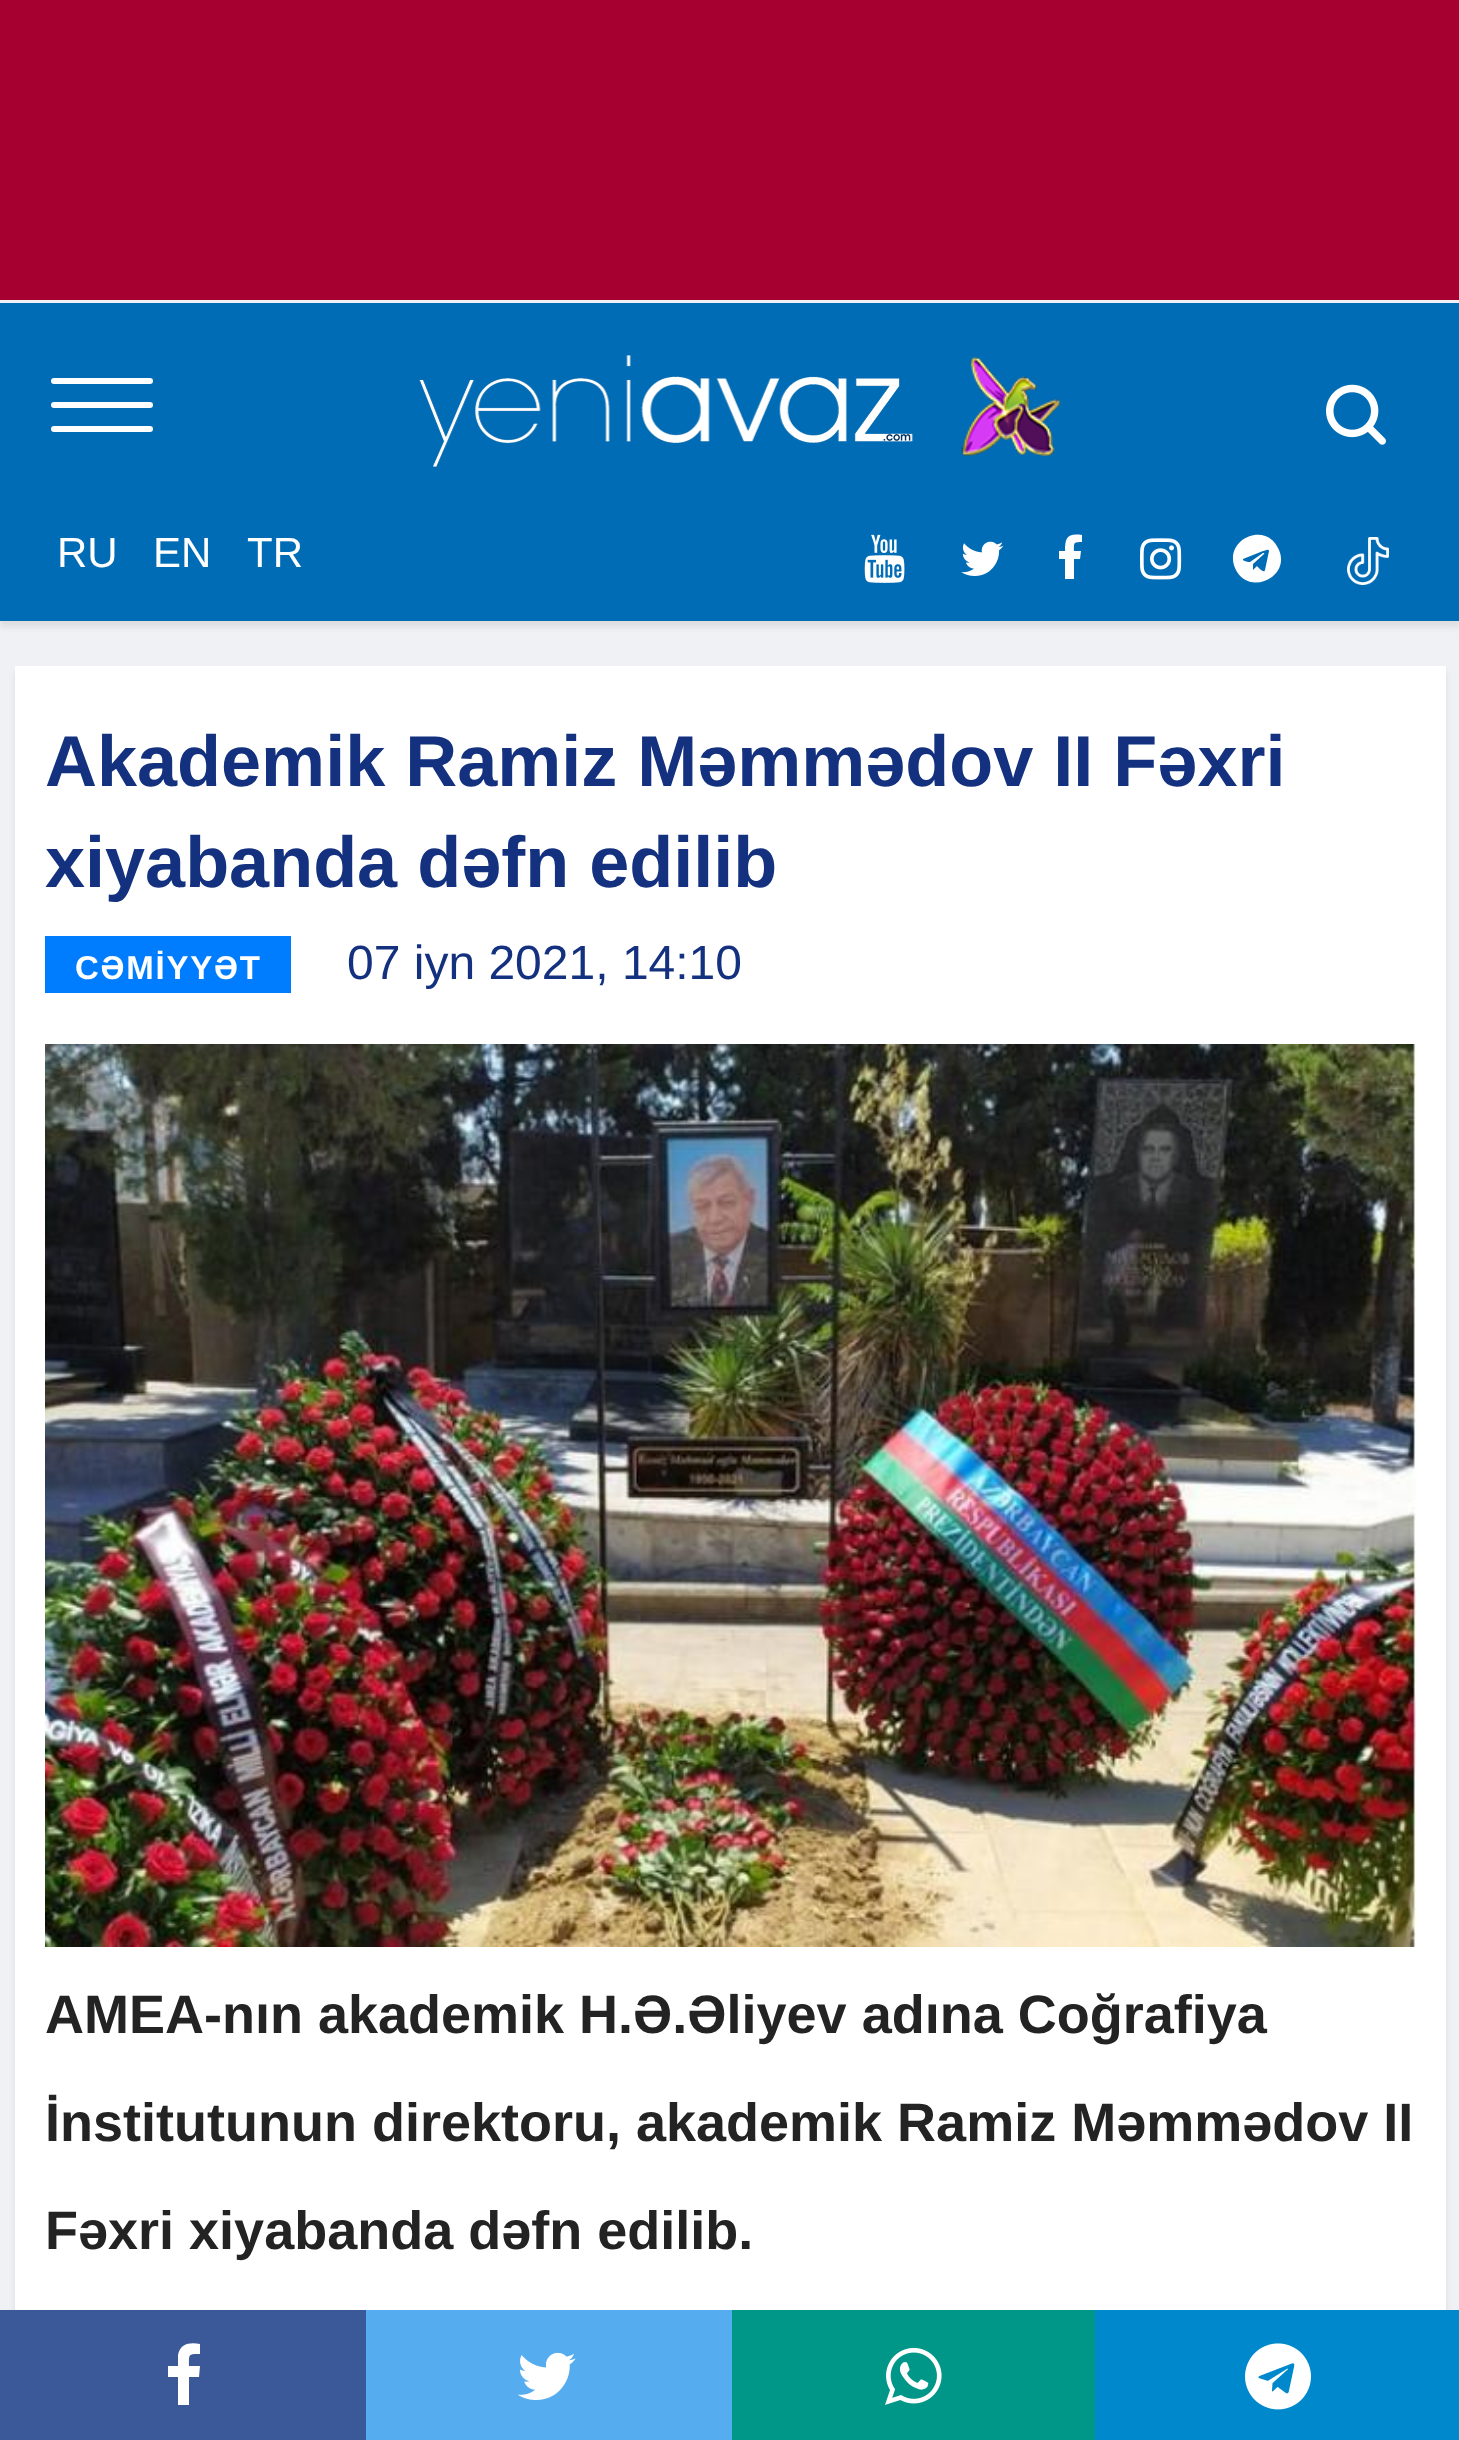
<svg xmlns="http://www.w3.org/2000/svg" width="1459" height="2440">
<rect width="100%" height="100%" fill="#f0f1f4"/>
<rect width="1459" height="300" fill="#a60030"/>
<rect y="309" width="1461" height="318" fill="#00000014" filter="blur(3px)"/>
<rect y="303" width="1459" height="318" fill="#006cb5"/>
<rect x="51" y="426" width="102" height="6" rx="3" fill="#fff"/>
<rect x="51" y="402" width="102" height="6" rx="3" fill="#fff"/>
<rect x="51" y="378" width="102" height="6" rx="3" fill="#fff"/>
<image x="419" y="355" width="494" height="112" href="media/1.png"/>
<image x="961" y="355" width="100" height="102" href="media/2.png"/>
<image x="1326" y="384" width="60" height="61" href="media/3.png"/>
<text x="57" y="567" style="font-family:Liberation Sans;font-size:42px;fill:#fff">RU</text>
<text x="153" y="567" style="font-family:Liberation Sans;font-size:42px;fill:#fff">EN</text>
<text x="247" y="567" style="font-family:Liberation Sans;font-size:42px;fill:#fff">TR</text>
<image x="864" y="534" width="41" height="49" href="media/4.png"/>
<image x="961" y="541" width="43" height="35" href="media/5.png"/>
<path d="M1082 535v7c-9 0-8 1-8 9h7l-1 8h-6v20h-9v-20h-6v-8h6c0-13 2-18 17-16z" fill="#fff"/>
<image x="1140" y="538" width="42" height="42" href="media/6.png"/>
<path d="M1265 570l4-19c0-3-5 0-6 0l-20 8c-1 2 6 3 7 3l13-9c1 0 2 0 1 1l-11 10v6l4-4c1 1 7 8 8 4zm14-20c12 28-32 47-44 18c-12-29 32-48 44-18z" fill="#fff"/>
<image x="1347" y="537" width="42" height="48" href="media/7.png"/>
<rect x="15" y="672" width="1431" height="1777" fill="#00000014" filter="blur(3px)"/>
<rect x="15" y="666" width="1431" height="1644" fill="#fff"/>
<text x="45" y="786" style="font-family:Liberation Sans;font-size:72px;font-weight:bold;fill:#13317f">Akademik Ramiz Məmmədov II Fəxri</text>
<text x="45" y="887" style="font-family:Liberation Sans;font-size:72px;font-weight:bold;fill:#13317f">xiyabanda dəfn edilib</text>
<rect x="45" y="936" width="246" height="57" fill="#007dff"/>
<text x="75" y="979" style="font-family:Liberation Sans;font-size:33px;font-weight:bold;letter-spacing:1.75px;fill:#fff">CƏMİYYƏT</text>
<text x="347" y="979" style="font-family:Liberation Sans;font-size:48px;fill:#13317f">07 iyn 2021, 14:10</text>
<rect y="2310" width="366" height="130" fill="#3b5999"/>
<path d="M200 2344v10c-12 0-11 0-11 12h11l-1 11h-10v28h-11v-28h-10v-11h10v-11c2-12 13-13 22-11z" fill="#fff"/>
<rect x="366" y="2310" width="366" height="130" fill="#55acee"/>
<image x="517" y="2352" width="59" height="48" href="media/8.png"/>
<rect x="732" y="2310" width="363" height="130" fill="#009688"/>
<image x="885" y="2347" width="57" height="58" href="media/9.png"/>
<rect x="1095" y="2310" width="364" height="130" fill="#08c"/>
<image x="1245" y="2343" width="66" height="67" href="media/10.png"/>
<image x="45" y="1044" width="1371" height="903" href="media/11.png"/>
<text x="45" y="2033" style="font-family:Liberation Sans;font-size:54px;font-weight:bold;fill:#232323">AMEA-nın akademik H.Ə.Əliyev adına Coğrafiya</text>
<text x="45" y="2141" style="font-family:Liberation Sans;font-size:54px;font-weight:bold;fill:#232323">İnstitutunun direktoru, akademik Ramiz Məmmədov II</text>
<text x="45" y="2249" style="font-family:Liberation Sans;font-size:54px;font-weight:bold;fill:#232323">Fəxri xiyabanda dəfn edilib.</text>
</svg>
